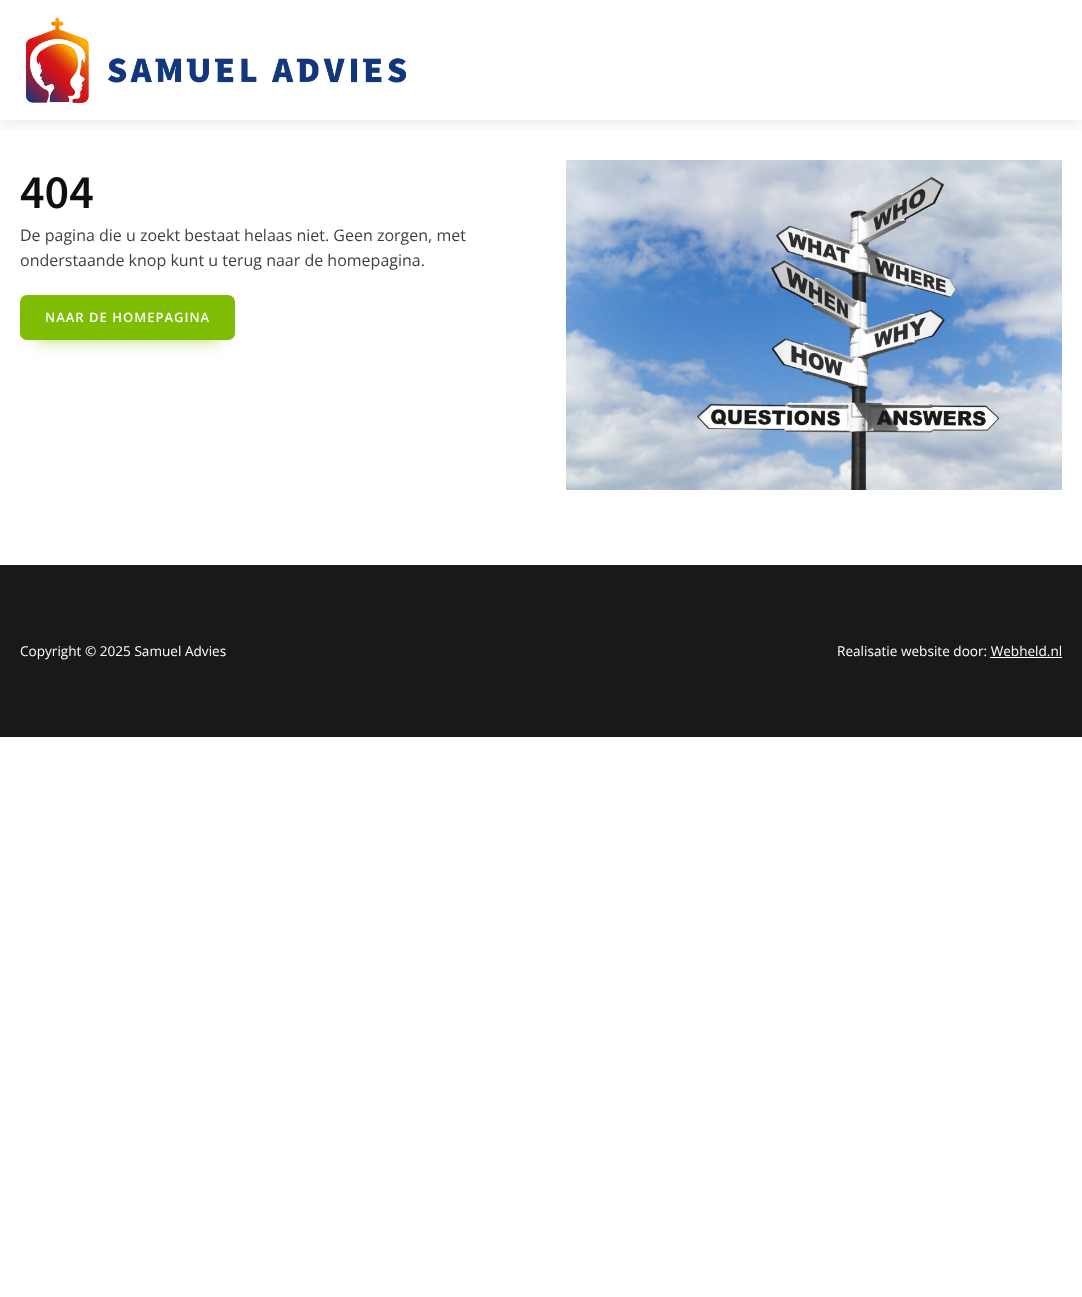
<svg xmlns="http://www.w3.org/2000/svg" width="1082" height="1297">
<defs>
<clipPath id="clip1"><rect x="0" y="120" width="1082" height="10"/></clipPath>
</defs>
<rect width="100%" height="100%" fill="#fff"/>
<g clip-path="url(#clip1)">
<rect y="5" width="1082" height="120" fill="#00000014" filter="blur(7.5px)"/>
</g>
<image x="25" y="17" width="381" height="86" href="media/1.png"/>
<text x="20" y="208" style="font-family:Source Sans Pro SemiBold;font-size:48px;font-weight:600;fill:#0f0f0f">404</text>
<text x="20" y="241" style="font-family:Open Sans;font-size:16px;fill:#404040">De pagina die u zoekt bestaat helaas niet. Geen zorgen, met</text>
<text x="20" y="266" style="font-family:Open Sans;font-size:16px;fill:#404040">onderstaande knop kunt u terug naar de homepagina.</text>
<rect x="35" y="320" width="185" height="15" fill="#7fbc04" filter="blur(10px)"/>
<rect x="20" y="295" width="215" height="45" rx="7" fill="#7fbc04"/>
<text x="45" y="322" style="font-family:Open Sans;font-size:13px;font-weight:600;letter-spacing:1px;fill:#fff">NAAR DE HOMEPAGINA</text>
<image x="566" y="160" width="496" height="330" href="media/2.png"/>
<rect y="565" width="1082" height="172" fill="#191919"/>
<text x="20" y="656" style="font-family:Open Sans;font-size:13.6px;fill:#fff">Copyright © 2025 Samuel Advies</text>
<text x="837" y="656" style="font-family:Open Sans;font-size:13.6px;fill:#fff">Realisatie website door: Webheld.nl</text>
<rect x="990" y="657" width="72" height="1" fill="#fff"/>
</svg>
